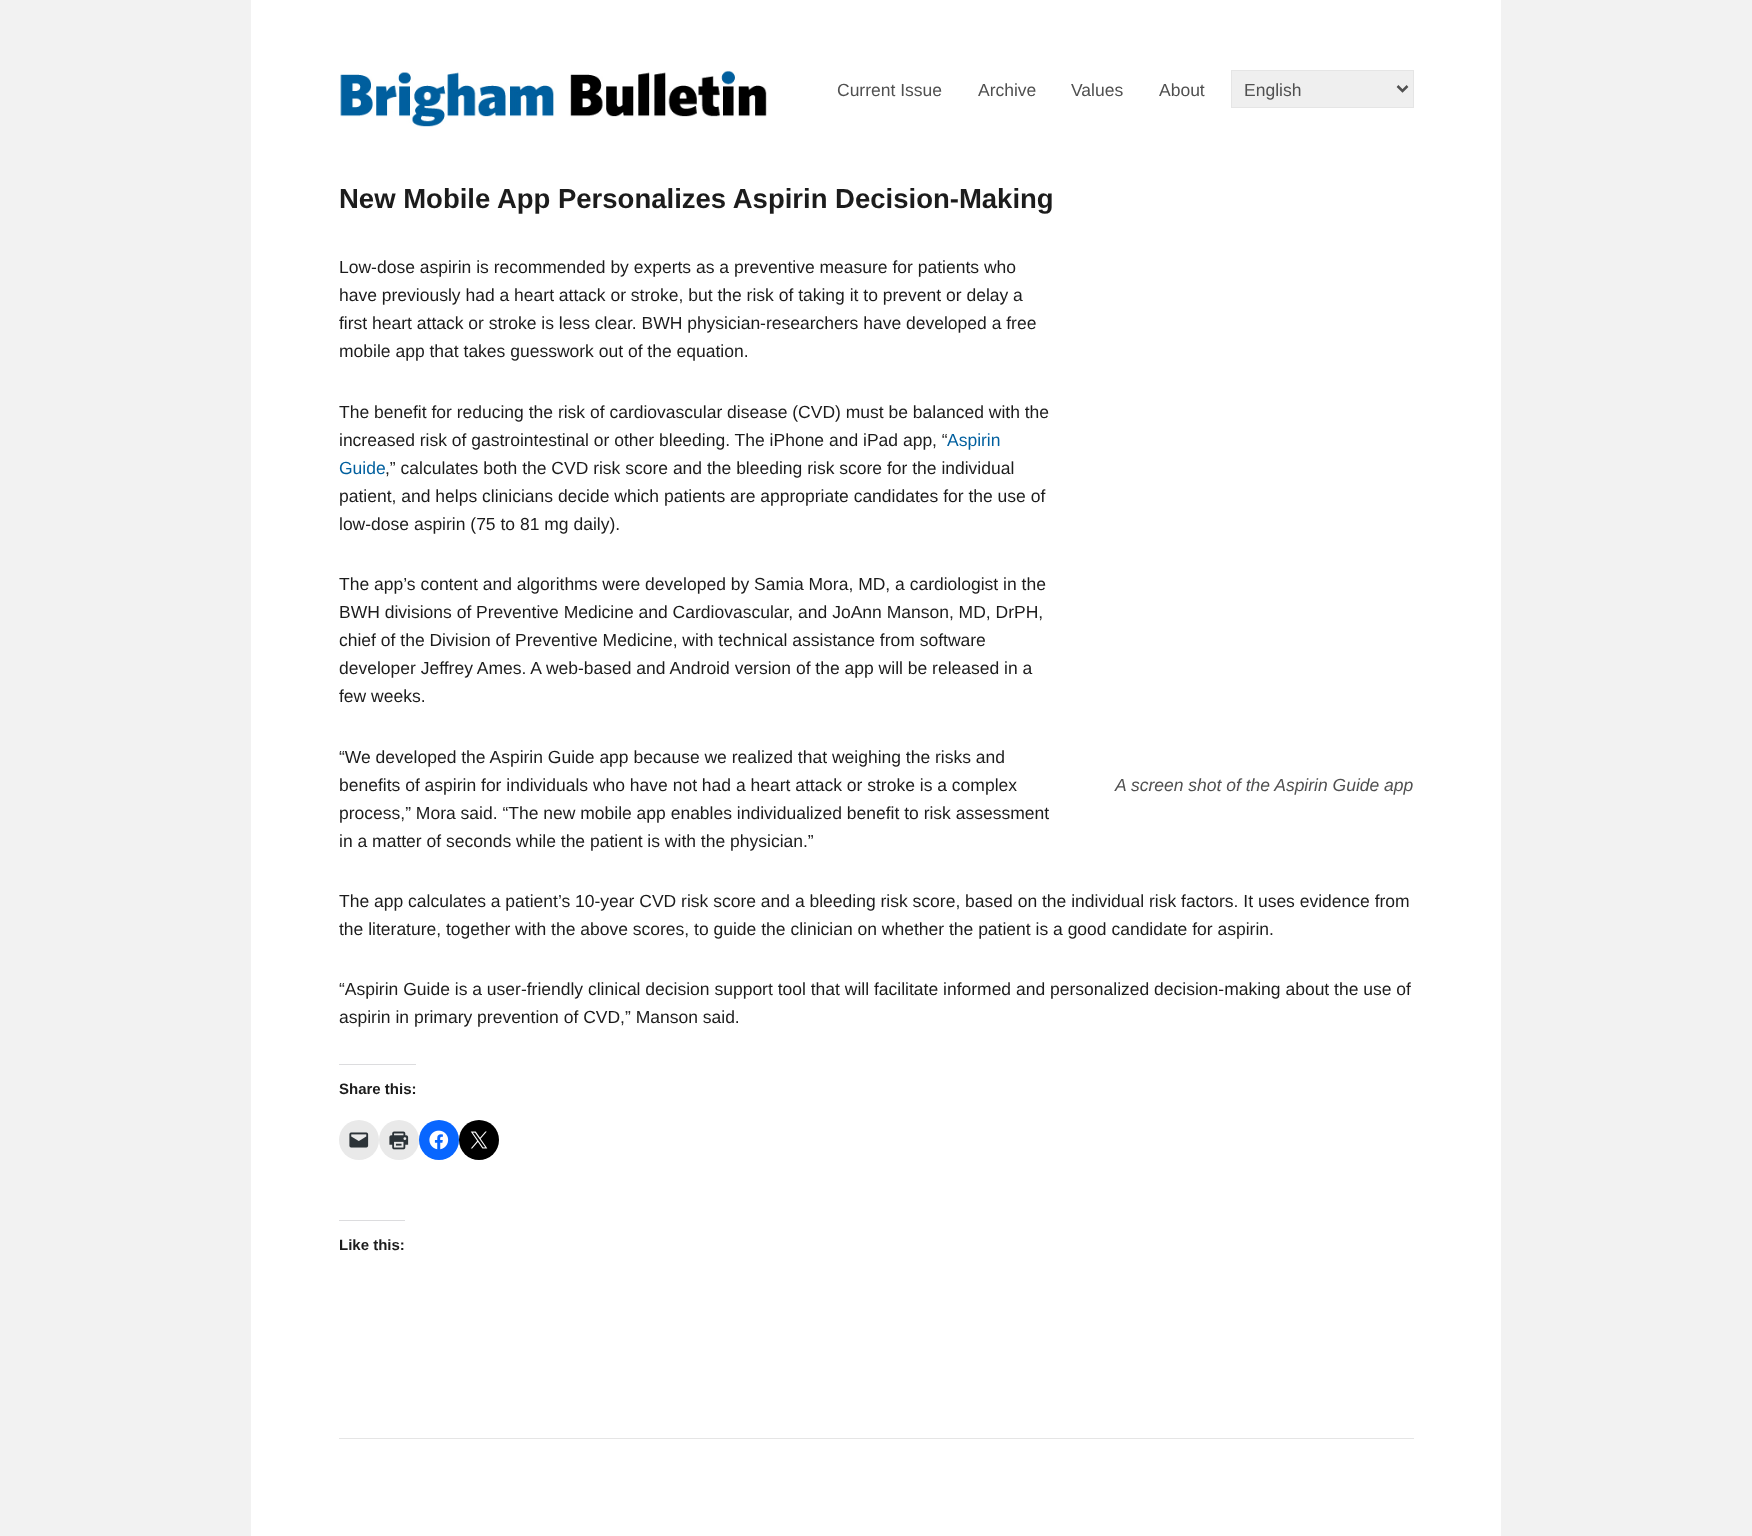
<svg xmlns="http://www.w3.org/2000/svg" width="1752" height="1536">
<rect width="100%" height="100%" fill="#f2f2f2"/>
<rect x="251" width="1250" height="1536" fill="#fff"/>
<image x="340" y="70" width="427" height="57" href="media/1.png"/>
<text x="837" y="96" style="font-family:Liberation Sans;font-size:17.5px;fill:#505050">Current Issue</text>
<text x="978" y="96" style="font-family:Liberation Sans;font-size:17.5px;fill:#505050">Archive</text>
<text x="1071" y="96" style="font-family:Liberation Sans;font-size:17.5px;fill:#505050">Values</text>
<text x="1159" y="96" style="font-family:Liberation Sans;font-size:17.5px;fill:#505050">About</text>
<rect x="1231.5" y="70.5" width="182" height="37" fill="#efefef" stroke="#e5e5e5"/>
<path d="M1397.5 86l5 5l5-5" fill="none" stroke="#505050" stroke-width="2.5"/>
<text x="1244" y="96" style="font-family:Liberation Sans;font-size:17.5px;fill:#505050">English</text>
<text x="339" y="208" style="font-family:Liberation Sans;font-size:27.5px;font-weight:bold;fill:#1c1c1c">New Mobile App Personalizes Aspirin Decision-Making</text>
<text x="339" y="273" style="font-family:Liberation Sans;font-size:17.5px;fill:#1c1c1c">Low-dose aspirin is recommended by experts as a preventive measure for patients who</text>
<text x="339" y="301" style="font-family:Liberation Sans;font-size:17.5px;fill:#1c1c1c">have previously had a heart attack or stroke, but the risk of taking it to prevent or delay a</text>
<text x="339" y="329" style="font-family:Liberation Sans;font-size:17.5px;fill:#1c1c1c">first heart attack or stroke is less clear. BWH physician-researchers have developed a free</text>
<text x="339" y="357" style="font-family:Liberation Sans;font-size:17.5px;fill:#1c1c1c">mobile app that takes guesswork out of the equation.</text>
<text x="339" y="418" style="font-family:Liberation Sans;font-size:17.5px;fill:#1c1c1c">The benefit for reducing the risk of cardiovascular disease (CVD) must be balanced with the</text>
<text x="339" y="446" style="font-family:Liberation Sans;font-size:17.5px;fill:#1c1c1c">increased risk of gastrointestinal or other bleeding. The iPhone and iPad app, “</text>
<text x="947" y="446" style="font-family:Liberation Sans;font-size:17.5px;fill:#005f9e">Aspirin</text>
<text x="339" y="474" style="font-family:Liberation Sans;font-size:17.5px;fill:#005f9e">Guide</text>
<text x="385" y="474" style="font-family:Liberation Sans;font-size:17.5px;fill:#1c1c1c">,” calculates both the CVD risk score and the bleeding risk score for the individual</text>
<text x="339" y="502" style="font-family:Liberation Sans;font-size:17.5px;fill:#1c1c1c">patient, and helps clinicians decide which patients are appropriate candidates for the use of</text>
<text x="339" y="530" style="font-family:Liberation Sans;font-size:17.5px;fill:#1c1c1c">low-dose aspirin (75 to 81 mg daily).</text>
<text x="339" y="590" style="font-family:Liberation Sans;font-size:17.5px;fill:#1c1c1c">The app’s content and algorithms were developed by Samia Mora, MD, a cardiologist in the</text>
<text x="339" y="618" style="font-family:Liberation Sans;font-size:17.5px;fill:#1c1c1c">BWH divisions of Preventive Medicine and Cardiovascular, and JoAnn Manson, MD, DrPH,</text>
<text x="339" y="646" style="font-family:Liberation Sans;font-size:17.5px;fill:#1c1c1c">chief of the Division of Preventive Medicine, with technical assistance from software</text>
<text x="339" y="674" style="font-family:Liberation Sans;font-size:17.5px;fill:#1c1c1c">developer Jeffrey Ames. A web-based and Android version of the app will be released in a</text>
<text x="339" y="702" style="font-family:Liberation Sans;font-size:17.5px;fill:#1c1c1c">few weeks.</text>
<text x="339" y="763" style="font-family:Liberation Sans;font-size:17.5px;fill:#1c1c1c">“We developed the Aspirin Guide app because we realized that weighing the risks and</text>
<text x="339" y="791" style="font-family:Liberation Sans;font-size:17.5px;fill:#1c1c1c">benefits of aspirin for individuals who have not had a heart attack or stroke is a complex</text>
<text x="339" y="819" style="font-family:Liberation Sans;font-size:17.5px;fill:#1c1c1c">process,” Mora said. “The new mobile app enables individualized benefit to risk assessment</text>
<text x="339" y="847" style="font-family:Liberation Sans;font-size:17.5px;fill:#1c1c1c">in a matter of seconds while the patient is with the physician.”</text>
<text x="1115" y="791" style="font-family:Liberation Sans;font-size:17.5px;font-style:italic;fill:#505050">A screen shot of the Aspirin Guide app</text>
<text x="339" y="907" style="font-family:Liberation Sans;font-size:17.5px;fill:#1c1c1c">The app calculates a patient’s 10-year CVD risk score and a bleeding risk score, based on the individual risk factors. It uses evidence from</text>
<text x="339" y="935" style="font-family:Liberation Sans;font-size:17.5px;fill:#1c1c1c">the literature, together with the above scores, to guide the clinician on whether the patient is a good candidate for aspirin.</text>
<text x="339" y="995" style="font-family:Liberation Sans;font-size:17.5px;fill:#1c1c1c">“Aspirin Guide is a user-friendly clinical decision support tool that will facilitate informed and personalized decision-making about the use of</text>
<text x="339" y="1023" style="font-family:Liberation Sans;font-size:17.5px;fill:#1c1c1c">aspirin in primary prevention of CVD,” Manson said.</text>
<rect x="339" y="1064" width="77" height="1" fill="#dcdcde"/>
<text x="339" y="1094" style="font-family:Liberation Sans;font-size:15px;font-weight:bold;fill:#1c1c1c">Share this:</text>
<circle cx="359" cy="1140" r="20" fill="#e9e9e9"/>
<image x="349" y="1132" width="20" height="16" href="media/2.png"/>
<circle cx="399" cy="1140" r="20" fill="#e9e9e9"/>
<image x="389" y="1131" width="20" height="19" href="media/3.png"/>
<circle cx="439" cy="1140" r="20" fill="#0866ff"/>
<image x="429" y="1130" width="20" height="20" href="media/4.png"/>
<circle cx="479" cy="1140" r="20" fill="#000"/>
<image x="470" y="1131" width="18" height="18" href="media/5.png"/>
<rect x="339" y="1220" width="66" height="1" fill="#dcdcde"/>
<text x="339" y="1250" style="font-family:Liberation Sans;font-size:15px;font-weight:bold;fill:#1c1c1c">Like this:</text>
<rect x="339" y="1438" width="1075" height="1" fill="#e5e5e5"/>
</svg>
